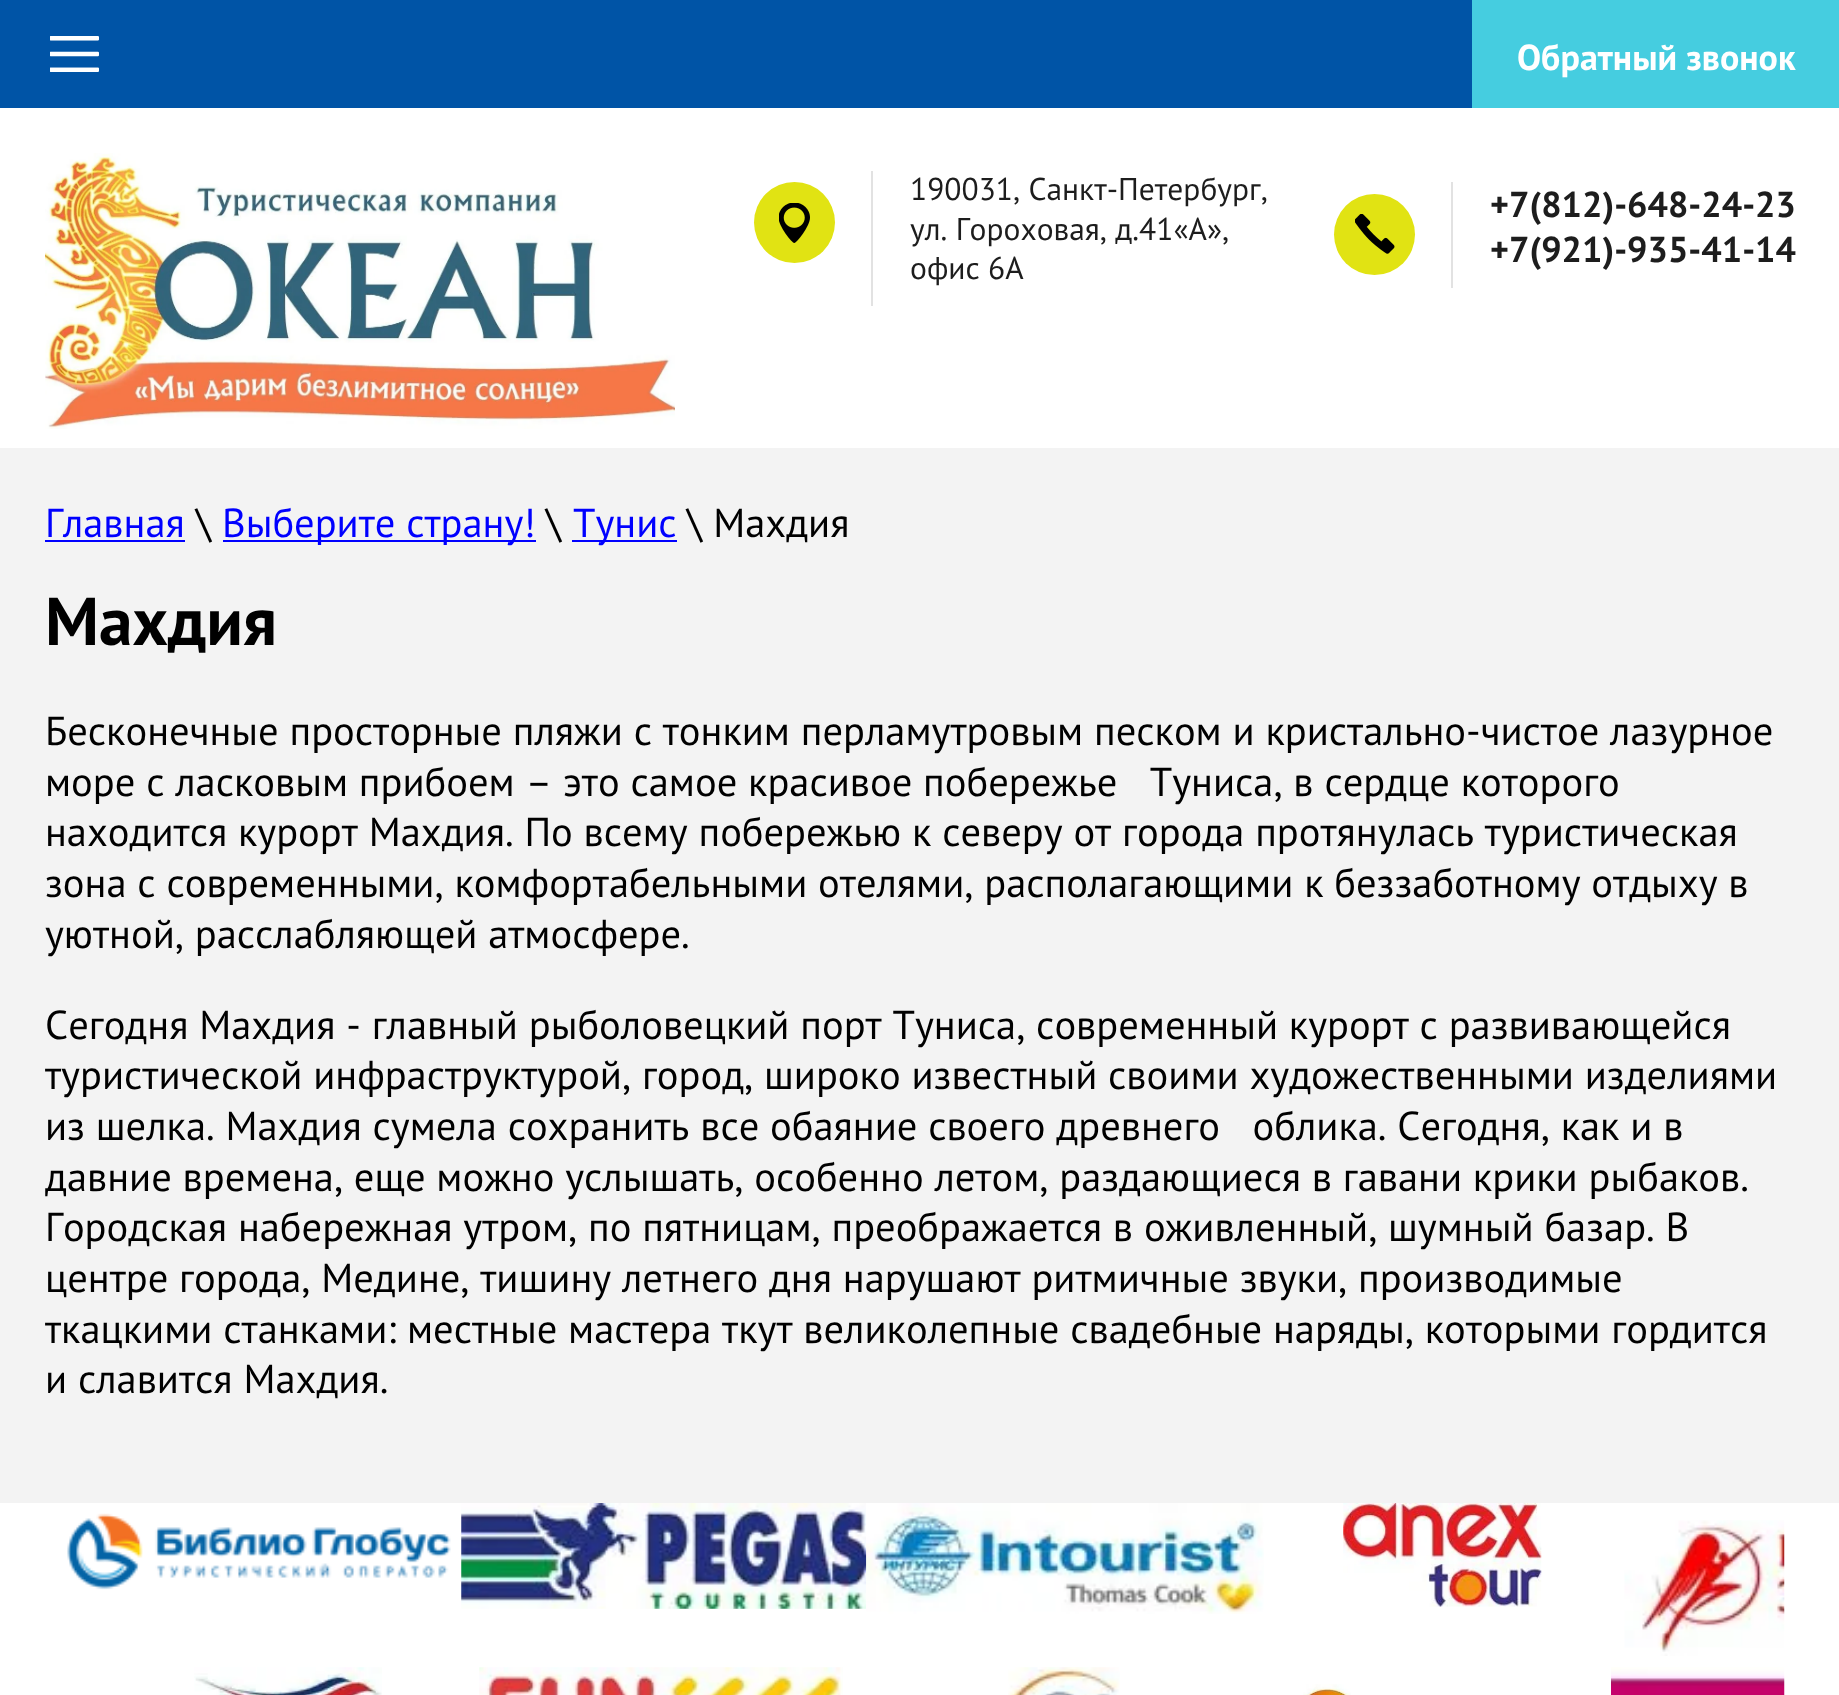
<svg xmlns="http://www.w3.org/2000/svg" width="1839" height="1695">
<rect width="100%" height="100%" fill="#fff"/>
<rect width="1472" height="108" fill="#0054a6"/>
<image x="50" y="36" width="49" height="36" href="media/1.png"/>
<image x="45" y="153" width="630" height="276" href="media/2.png"/>
<rect x="1472" width="367" height="108" fill="#45cde0"/>
<text x="1517" y="70" style="font-family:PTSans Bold;font-size:36px;font-weight:bold;fill:#fff">Обратный звонок</text>
<circle cx="794.5" cy="222.5" r="40.5" fill="#e1e313"/>
<image x="779" y="203" width="31" height="40" href="media/3.png"/>
<rect x="871" y="171" width="2" height="135" fill="#e2e2e2"/>
<text x="910" y="200" style="font-family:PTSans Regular;font-size:31.5px;fill:#1d1d1d">190031, Санкт-Петербург,</text>
<text x="910" y="240" style="font-family:PTSans Regular;font-size:31.5px;fill:#1d1d1d">ул. Гороховая, д.41«А»,</text>
<text x="910" y="279" style="font-family:PTSans Regular;font-size:31.5px;fill:#1d1d1d">офис 6А</text>
<circle cx="1374.5" cy="234.5" r="40.5" fill="#e1e313"/>
<image x="1355" y="214" width="40" height="40" href="media/4.png"/>
<rect x="1451" y="182" width="2" height="106" fill="#e2e2e2"/>
<text x="1490" y="217" style="font-family:PTSans Bold;font-size:36px;font-weight:bold;fill:#1d1d1d">+7(812)-648-24-23</text>
<text x="1490" y="262" style="font-family:PTSans Bold;font-size:36px;font-weight:bold;fill:#1d1d1d">+7(921)-935-41-14</text>
<rect y="448" width="1839" height="1055" fill="#f3f3f3"/>
<text x="45" y="537" style="font-family:PTSans Regular;font-size:40.5px;fill:#00f">Главная</text>
<rect x="45" y="540" width="140" height="2" fill="#00f"/>
<text x="196" y="537" style="font-family:PTSans Regular;font-size:40.5px;fill:#000">\</text>
<rect x="223" y="540" width="313" height="2" fill="#00f"/>
<text x="222" y="537" style="font-family:PTSans Regular;font-size:40.5px;fill:#00f">Выберите страну!</text>
<text x="546" y="537" style="font-family:PTSans Regular;font-size:40.5px;fill:#000">\</text>
<rect x="572" y="540" width="105" height="2" fill="#00f"/>
<text x="573" y="537" style="font-family:PTSans Regular;font-size:40.5px;fill:#00f">Тунис</text>
<text x="687" y="537" style="font-family:PTSans Regular;font-size:40.5px;fill:#000">\ Махдия</text>
<text x="45" y="645" style="font-family:PTSans Bold;font-size:67.5px;font-weight:bold;fill:#000">Махдия</text>
<text x="45" y="745" style="font-family:PTSans Regular;font-size:40.5px;fill:#000">Бесконечные просторные пляжи с тонким перламутровым песком и кристально-чистое лазурное</text>
<text x="45" y="796" style="font-family:PTSans Regular;font-size:40.5px;fill:#000" xml:space="preserve">море с ласковым прибоем – это самое красивое побережье   Туниса, в сердце которого</text>
<text x="45" y="846" style="font-family:PTSans Regular;font-size:40.5px;fill:#000">находится курорт Махдия. По всему побережью к северу от города протянулась туристическая</text>
<text x="45" y="897" style="font-family:PTSans Regular;font-size:40.5px;fill:#000">зона с современными, комфортабельными отелями, располагающими к беззаботному отдыху в</text>
<text x="45" y="948" style="font-family:PTSans Regular;font-size:40.5px;fill:#000">уютной, расслабляющей атмосфере.</text>
<text x="45" y="1039" style="font-family:PTSans Regular;font-size:40.5px;fill:#000">Сегодня Махдия - главный рыболовецкий порт Туниса, современный курорт с развивающейся</text>
<text x="45" y="1089" style="font-family:PTSans Regular;font-size:40.5px;fill:#000">туристической инфраструктурой, город, широко известный своими художественными изделиями</text>
<text x="45" y="1140" style="font-family:PTSans Regular;font-size:40.5px;fill:#000" xml:space="preserve">из шелка. Махдия сумела сохранить все обаяние своего древнего   облика. Сегодня, как и в</text>
<text x="45" y="1191" style="font-family:PTSans Regular;font-size:40.5px;fill:#000">давние времена, еще можно услышать, особенно летом, раздающиеся в гавани крики рыбаков.</text>
<text x="45" y="1241" style="font-family:PTSans Regular;font-size:40.5px;fill:#000">Городская набережная утром, по пятницам, преображается в оживленный, шумный базар. В</text>
<text x="45" y="1292" style="font-family:PTSans Regular;font-size:40.5px;fill:#000">центре города, Медине, тишину летнего дня нарушают ритмичные звуки, производимые</text>
<text x="45" y="1343" style="font-family:PTSans Regular;font-size:40.5px;fill:#000">ткацкими станками: местные мастера ткут великолепные свадебные наряды, которыми гордится</text>
<text x="45" y="1393" style="font-family:PTSans Regular;font-size:40.5px;fill:#000">и славится Махдия.</text>
<image x="67" y="1513" width="384" height="77" href="media/5.png"/>
<image x="461" y="1503" width="406" height="106" href="media/6.png"/>
<image x="866" y="1503" width="398" height="111" href="media/7.png"/>
<image x="1343" y="1503" width="199" height="104" href="media/8.png"/>
<image x="1624" y="1520" width="161" height="136" href="media/9.png"/>
<image x="194" y="1667" width="188" height="28" href="media/10.png"/>
<image x="479" y="1667" width="364" height="28" href="media/11.png"/>
<image x="1008" y="1667" width="112" height="28" href="media/12.png"/>
<image x="1303" y="1684" width="48" height="11" href="media/13.png"/>
<image x="1611" y="1667" width="174" height="28" href="media/14.png"/>
</svg>
